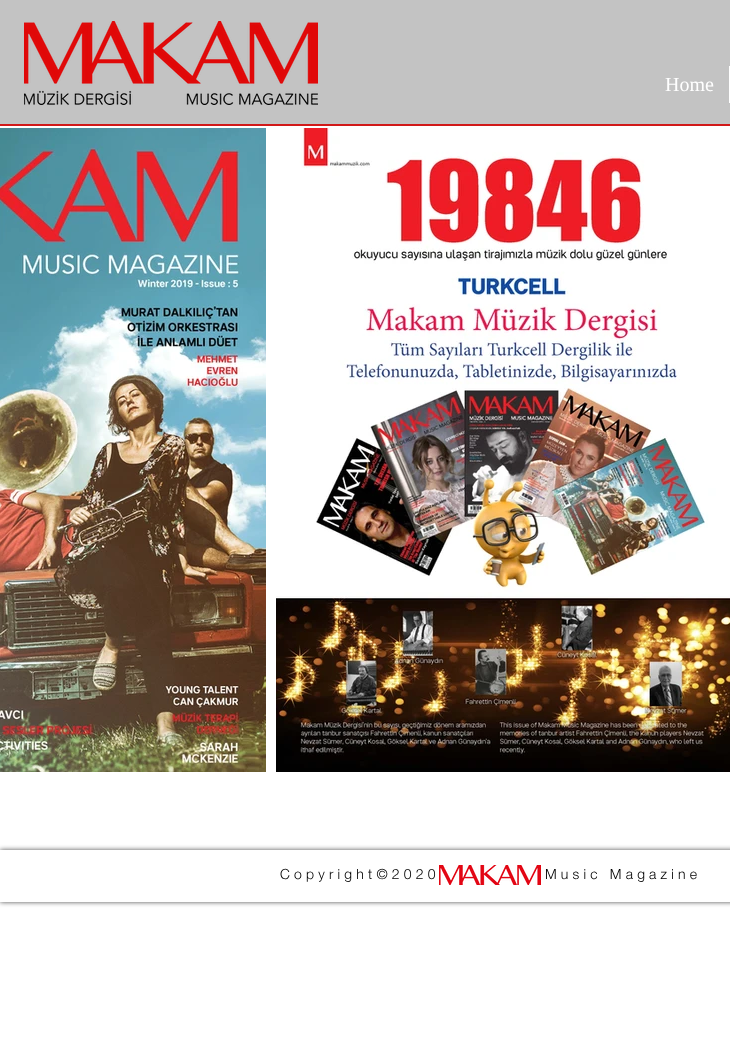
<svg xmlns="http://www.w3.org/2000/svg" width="730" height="1044">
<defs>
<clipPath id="clip1"><path d="M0 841h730v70h-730zm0 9h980v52h-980z" clip-rule="evenodd"/></clipPath>
</defs>
<rect width="100%" height="100%" fill="#fff"/>
<rect width="730" height="124" fill="#c3c3c3"/>
<image x="24" y="21" width="294" height="84" href="media/1.png"/>
<text x="665" y="91" style="font-family:Liberation Serif;font-size:20px;fill:#fff">Home</text>
<rect x="729" y="66" width="1" height="37" fill="#fff"/>
<rect y="124" width="730" height="2" fill="#d11919"/>
<image x="0" y="128" width="266" height="644" href="media/2.png"/>
<image x="276" y="128" width="454" height="644" href="media/3.png"/>
<g clip-path="url(#clip1)">
<rect y="850" width="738" height="52" fill="#000000b3" filter="blur(2.5px)"/>
</g>
<text x="280" y="879" style="font-family:'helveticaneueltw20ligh';font-size:14px;font-weight:300;letter-spacing:4.2px;fill:#000" xml:space="preserve">Copyright©2020             Music Magazine</text>
<image x="439" y="865" width="102" height="20" href="media/4.png"/>
</svg>
